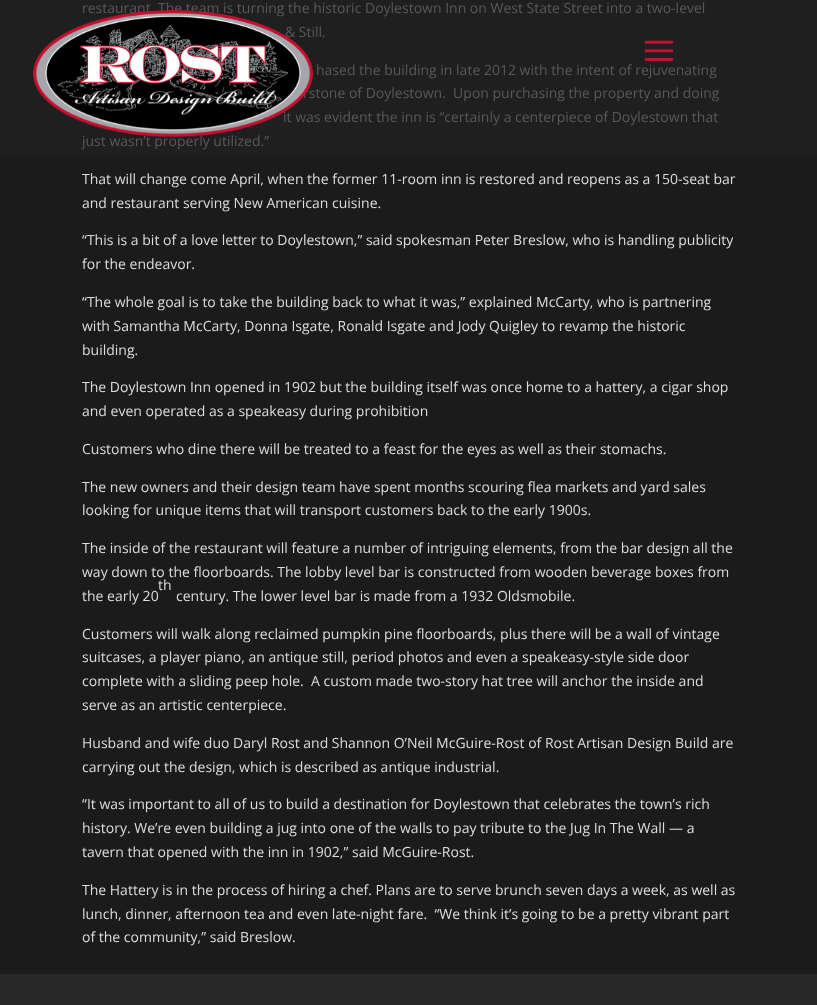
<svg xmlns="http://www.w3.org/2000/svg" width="817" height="1005">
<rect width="100%" height="100%" fill="#292929"/>
<rect y="157" width="817" height="817" fill="#1b1b1b"/>
<rect width="817" height="157" fill="#1f1f1f"/>
<text x="82" y="13" style="font-family:Open Sans;font-size:14px;fill:#595959">restaurant. The team is turning the historic Doylestown Inn on West State Street into a two-level</text>
<text x="285" y="37" style="font-family:Open Sans;font-size:14px;fill:#595959">&amp; Still.</text>
<text x="316" y="75" style="font-family:Open Sans;font-size:14px;fill:#595959">hased the building in late 2012 with the intent of rejuvenating</text>
<text x="303" y="98" style="font-family:Open Sans;font-size:14px;fill:#595959" xml:space="preserve">rstone of Doylestown.  Upon purchasing the property and doing</text>
<text x="283" y="122" style="font-family:Open Sans;font-size:14px;fill:#595959">it was evident the inn is “certainly a centerpiece of Doylestown that</text>
<text x="82" y="146" style="font-family:Open Sans;font-size:14px;fill:#595959">just wasn’t properly utilized.”</text>
<text x="82" y="184" style="font-family:Open Sans;font-size:14px;fill:#ddd">That will change come April, when the former 11-room inn is restored and reopens as a 150-seat bar</text>
<text x="82" y="208" style="font-family:Open Sans;font-size:14px;fill:#ddd">and restaurant serving New American cuisine.</text>
<text x="82" y="245" style="font-family:Open Sans;font-size:14px;fill:#ddd">“This is a bit of a love letter to Doylestown,” said spokesman Peter Breslow, who is handling publicity</text>
<text x="82" y="269" style="font-family:Open Sans;font-size:14px;fill:#ddd">for the endeavor.</text>
<text x="82" y="307" style="font-family:Open Sans;font-size:14px;fill:#ddd">“The whole goal is to take the building back to what it was,” explained McCarty, who is partnering</text>
<text x="82" y="331" style="font-family:Open Sans;font-size:14px;fill:#ddd">with Samantha McCarty, Donna Isgate, Ronald Isgate and Jody Quigley to revamp the historic</text>
<text x="82" y="355" style="font-family:Open Sans;font-size:14px;fill:#ddd">building.</text>
<text x="82" y="392" style="font-family:Open Sans;font-size:14px;fill:#ddd">The Doylestown Inn opened in 1902 but the building itself was once home to a hattery, a cigar shop</text>
<text x="82" y="416" style="font-family:Open Sans;font-size:14px;fill:#ddd">and even operated as a speakeasy during prohibition</text>
<text x="82" y="454" style="font-family:Open Sans;font-size:14px;fill:#ddd">Customers who dine there will be treated to a feast for the eyes as well as their stomachs.</text>
<text x="82" y="492" style="font-family:Open Sans;font-size:14px;fill:#ddd">The new owners and their design team have spent months scouring flea markets and yard sales</text>
<text x="82" y="515" style="font-family:Open Sans;font-size:14px;fill:#ddd">looking for unique items that will transport customers back to the early 1900s.</text>
<text x="82" y="553" style="font-family:Open Sans;font-size:14px;fill:#ddd">The inside of the restaurant will feature a number of intriguing elements, from the bar design all the</text>
<text x="82" y="577" style="font-family:Open Sans;font-size:14px;fill:#ddd">way down to the floorboards. The lobby level bar is constructed from wooden beverage boxes from</text>
<text x="158" y="590" style="font-family:Open Sans;font-size:14px;fill:#ddd">th</text>
<text x="82" y="601" style="font-family:Open Sans;font-size:14px;fill:#ddd">the early 20</text>
<text x="176" y="601" style="font-family:Open Sans;font-size:14px;fill:#ddd">century. The lower level bar is made from a 1932 Oldsmobile.</text>
<text x="82" y="639" style="font-family:Open Sans;font-size:14px;fill:#ddd">Customers will walk along reclaimed pumpkin pine floorboards, plus there will be a wall of vintage</text>
<text x="82" y="662" style="font-family:Open Sans;font-size:14px;fill:#ddd">suitcases, a player piano, an antique still, period photos and even a speakeasy-style side door</text>
<text x="82" y="686" style="font-family:Open Sans;font-size:14px;fill:#ddd" xml:space="preserve">complete with a sliding peep hole.  A custom made two-story hat tree will anchor the inside and</text>
<text x="82" y="710" style="font-family:Open Sans;font-size:14px;fill:#ddd">serve as an artistic centerpiece.</text>
<text x="82" y="748" style="font-family:Open Sans;font-size:14px;fill:#ddd">Husband and wife duo Daryl Rost and Shannon O’Neil McGuire-Rost of Rost Artisan Design Build are</text>
<text x="82" y="772" style="font-family:Open Sans;font-size:14px;fill:#ddd">carrying out the design, which is described as antique industrial.</text>
<text x="82" y="809" style="font-family:Open Sans;font-size:14px;fill:#ddd">“It was important to all of us to build a destination for Doylestown that celebrates the town’s rich</text>
<text x="82" y="833" style="font-family:Open Sans;font-size:14px;fill:#ddd">history. We’re even building a jug into one of the walls to pay tribute to the Jug In The Wall — a</text>
<text x="82" y="857" style="font-family:Open Sans;font-size:14px;fill:#ddd">tavern that opened with the inn in 1902,” said McGuire-Rost.</text>
<text x="82" y="895" style="font-family:Open Sans;font-size:14px;fill:#ddd">The Hattery is in the process of hiring a chef. Plans are to serve brunch seven days a week, as well as</text>
<text x="82" y="919" style="font-family:Open Sans;font-size:14px;fill:#ddd" xml:space="preserve">lunch, dinner, afternoon tea and even late-night fare.  “We think it’s going to be a pretty vibrant part</text>
<text x="82" y="942" style="font-family:Open Sans;font-size:14px;fill:#ddd">of the community,” said Breslow.</text>
<image x="33" y="10" width="280" height="127" href="media/1.png"/>
<image x="644" y="40" width="30" height="21" href="media/2.png"/>
</svg>
